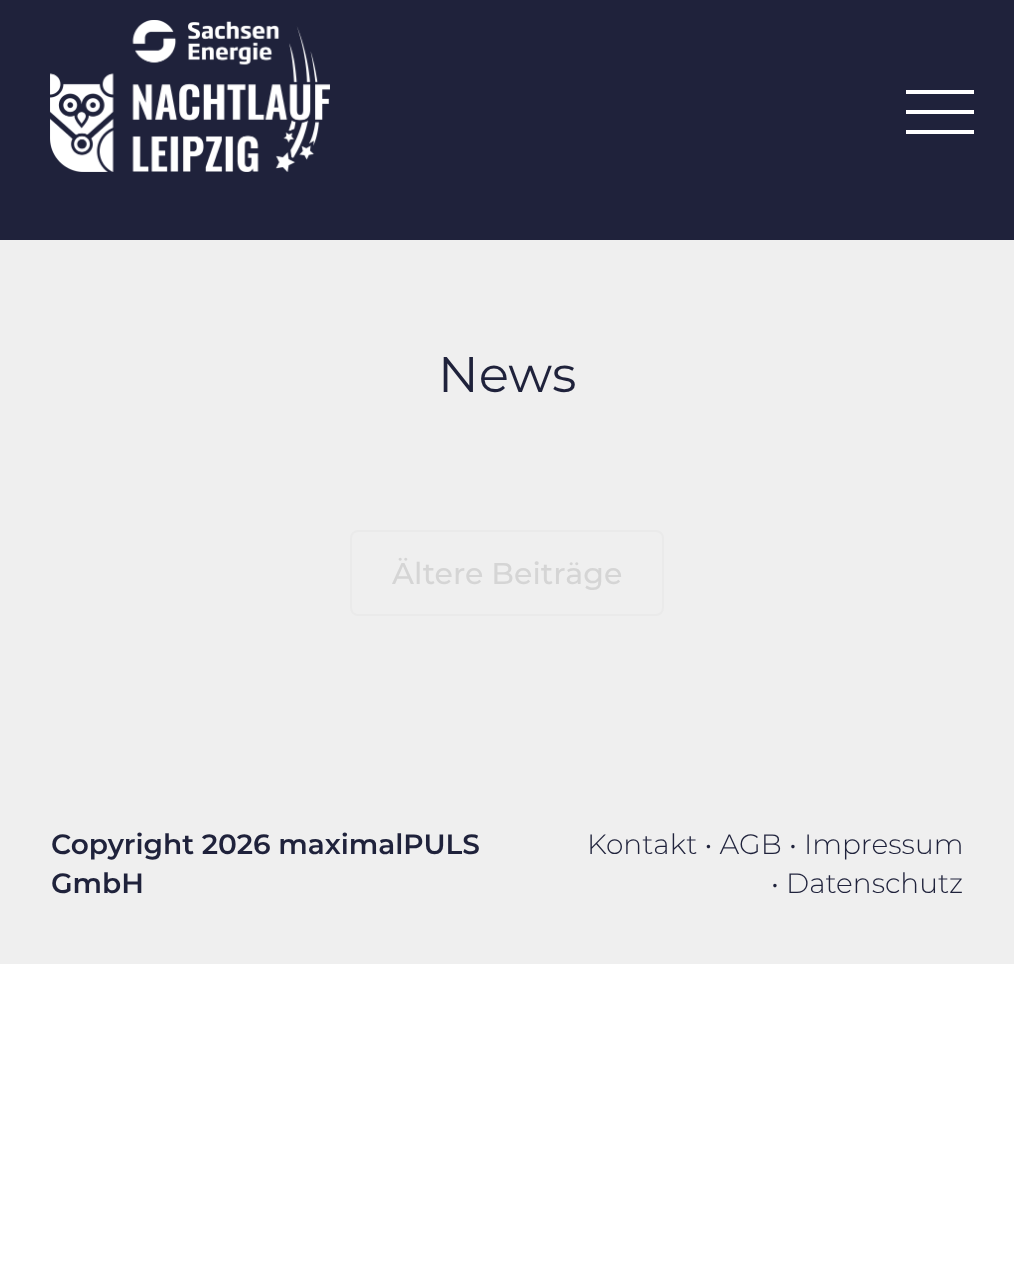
<svg xmlns="http://www.w3.org/2000/svg" width="1014" height="1286">
<rect width="100%" height="100%" fill="#fff"/>
<rect width="1014" height="240" fill="#1f223b"/>
<image x="50" y="20" width="280" height="152" href="media/1.png"/>
<rect x="906" y="90" width="68" height="4" fill="#fff"/>
<rect x="906" y="110" width="68" height="4" fill="#fff"/>
<rect x="906" y="130" width="68" height="4" fill="#fff"/>
<rect y="240" width="1014" height="724" fill="#efefef"/>
<text x="438" y="392" style="font-family:Montserrat;font-size:50px;fill:#1f223b">News</text>
<rect x="351" y="531" width="312" height="84" rx="7" fill="none" stroke="#eaeaea" stroke-width="2"/>
<text x="392" y="584" style="font-family:Montserrat;font-size:30px;font-weight:500;fill:#d5d5d5">Ältere Beiträge</text>
<text x="51" y="854" style="font-family:Montserrat;font-size:28px;font-weight:600;fill:#1f223b">Copyright 2026 maximalPULS</text>
<text x="51" y="893" style="font-family:Montserrat;font-size:28px;font-weight:600;fill:#1f223b">GmbH</text>
<text x="587" y="854" style="font-family:Montserrat;font-size:28px;font-weight:300;fill:#1f223b">Kontakt • AGB • Impressum</text>
<text x="771" y="893" style="font-family:Montserrat;font-size:28px;font-weight:300;fill:#1f223b">• Datenschutz</text>
</svg>
